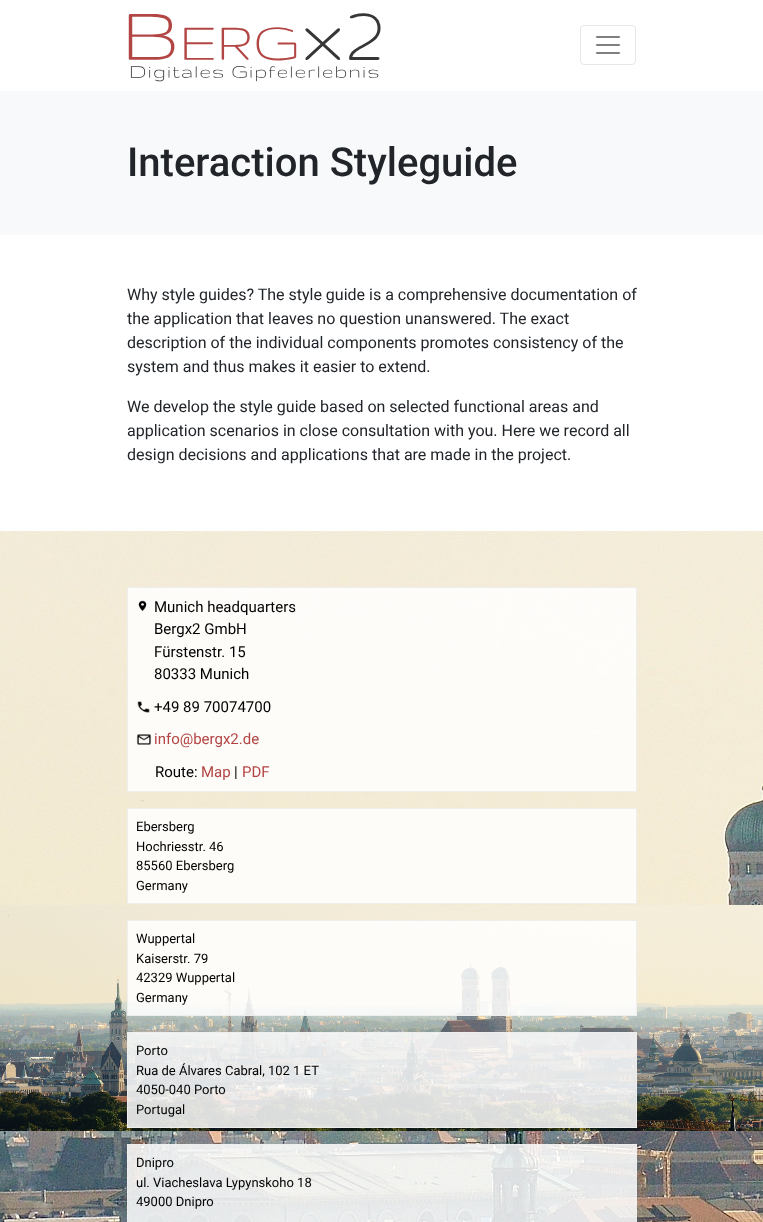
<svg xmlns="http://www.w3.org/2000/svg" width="763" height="1222">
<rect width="100%" height="100%" fill="#fff"/>
<image x="128" y="13" width="253" height="69" href="media/1.png"/>
<rect x="580.5" y="25.5" width="55" height="39" rx="3.5" fill="none" stroke="#e6e6e6"/>
<image x="596" y="36" width="24" height="18" href="media/2.png"/>
<rect y="91" width="763" height="144" fill="#f8f9fa"/>
<text x="127" y="176" style="font-family:Roboto;font-size:40px;font-weight:500;fill:#212529">Interaction Styleguide</text>
<text x="127" y="300" style="font-family:Roboto;font-size:16px;fill:#212529">Why style guides? The style guide is a comprehensive documentation of</text>
<text x="127" y="324" style="font-family:Roboto;font-size:16px;fill:#212529">the application that leaves no question unanswered. The exact</text>
<text x="127" y="348" style="font-family:Roboto;font-size:16px;fill:#212529">description of the individual components promotes consistency of the</text>
<text x="127" y="372" style="font-family:Roboto;font-size:16px;fill:#212529">system and thus makes it easier to extend.</text>
<text x="127" y="412" style="font-family:Roboto;font-size:16px;fill:#212529">We develop the style guide based on selected functional areas and</text>
<text x="127" y="436" style="font-family:Roboto;font-size:16px;fill:#212529">application scenarios in close consultation with you. Here we record all</text>
<text x="127" y="460" style="font-family:Roboto;font-size:16px;fill:#212529">design decisions and applications that are made in the project.</text>
<image x="0" y="531" width="763" height="691" href="media/3.png"/>
<image x="0" y="905" width="763" height="226" href="media/4.png"/>
<rect x="127.5" y="587.5" width="509" height="204" fill="#ffffffd9" stroke="#eee"/>
<image x="138" y="600" width="9" height="12" href="media/5.png"/>
<text x="154" y="612" style="font-family:Roboto;font-size:15px;fill:#000">Munich headquarters</text>
<text x="154" y="634" style="font-family:Roboto;font-size:15px;fill:#000">Bergx2 GmbH</text>
<text x="154" y="657" style="font-family:Roboto;font-size:15px;fill:#000">Fürstenstr. 15</text>
<text x="154" y="679" style="font-family:Roboto;font-size:15px;fill:#000">80333 Munich</text>
<image x="137" y="701" width="13" height="12" href="media/6.png"/>
<text x="154" y="712" style="font-family:Roboto;font-size:15px;fill:#000">+49 89 70074700</text>
<image x="136" y="734" width="16" height="11" href="media/7.png"/>
<text x="154" y="744" style="font-family:Roboto;font-size:15px;fill:#b24444">info@bergx2.de</text>
<text x="155" y="777" style="font-family:Roboto;font-size:15px;fill:#000">Route:</text>
<text x="201" y="777" style="font-family:Roboto;font-size:15px;fill:#b24444">Map</text>
<text x="234" y="777" style="font-family:Roboto;font-size:15px;fill:#000">|</text>
<text x="242" y="777" style="font-family:Roboto;font-size:15px;fill:#b24444">PDF</text>
<rect x="127.5" y="808.5" width="509" height="95" fill="#ffffffd9" stroke="#eee"/>
<text x="136" y="831" style="font-family:Roboto;font-size:13px;fill:#000">Ebersberg</text>
<text x="136" y="851" style="font-family:Roboto;font-size:13px;fill:#000">Hochriesstr. 46</text>
<text x="136" y="870" style="font-family:Roboto;font-size:13px;fill:#000">85560 Ebersberg</text>
<text x="136" y="890" style="font-family:Roboto;font-size:13px;fill:#000">Germany</text>
<rect x="127.5" y="920.5" width="509" height="95" fill="#ffffffd9" stroke="#eee"/>
<text x="136" y="943" style="font-family:Roboto;font-size:13px;fill:#000">Wuppertal</text>
<text x="136" y="963" style="font-family:Roboto;font-size:13px;fill:#000">Kaiserstr. 79</text>
<text x="136" y="982" style="font-family:Roboto;font-size:13px;fill:#000">42329 Wuppertal</text>
<text x="136" y="1002" style="font-family:Roboto;font-size:13px;fill:#000">Germany</text>
<rect x="127.5" y="1032.5" width="509" height="95" fill="#ffffffd9" stroke="#eee"/>
<text x="136" y="1055" style="font-family:Roboto;font-size:13px;fill:#000">Porto</text>
<text x="136" y="1075" style="font-family:Roboto;font-size:13px;fill:#000">Rua de Álvares Cabral, 102 1 ET</text>
<text x="136" y="1094" style="font-family:Roboto;font-size:13px;fill:#000">4050-040 Porto</text>
<text x="136" y="1114" style="font-family:Roboto;font-size:13px;fill:#000">Portugal</text>
<rect x="127.5" y="1144.5" width="509" height="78" fill="#ffffffd9" stroke="#eee"/>
<text x="136" y="1167" style="font-family:Roboto;font-size:13px;fill:#000">Dnipro</text>
<text x="136" y="1187" style="font-family:Roboto;font-size:13px;fill:#000">ul. Viacheslava Lypynskoho 18</text>
<text x="136" y="1206" style="font-family:Roboto;font-size:13px;fill:#000">49000 Dnipro</text>
</svg>
